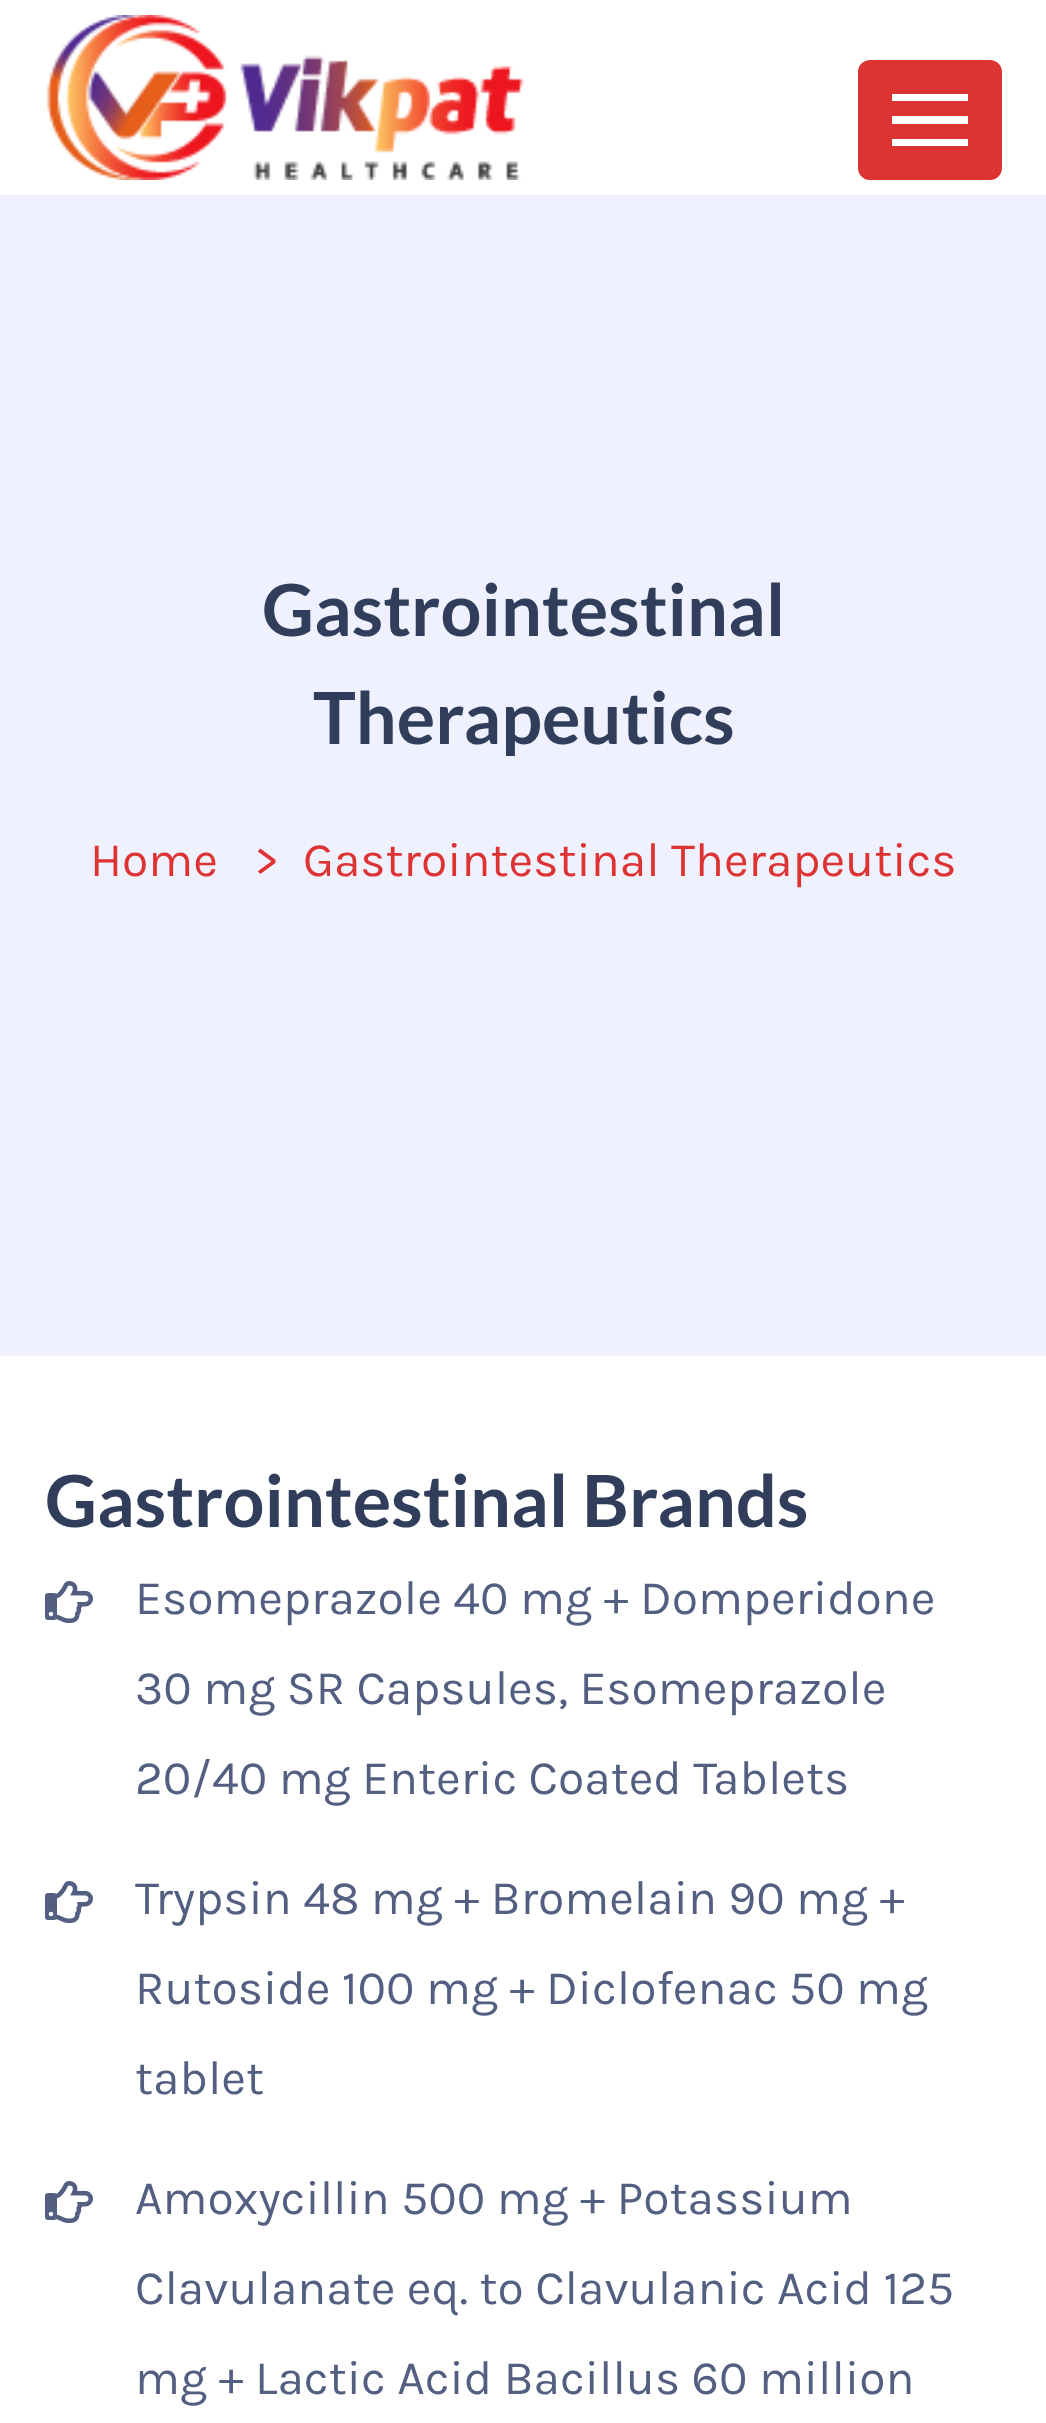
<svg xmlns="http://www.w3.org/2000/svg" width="1046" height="2423">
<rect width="100%" height="100%" fill="#fff"/>
<image x="46" y="15" width="478" height="165" href="media/1.png"/>
<rect x="859.5" y="61.5" width="141" height="117" rx="10.5" fill="#d33" stroke="#d33" stroke-width="3"/>
<path d="M892 124v-8h76v8zm0-23v-7h76v7zm0 45v-7h76v7z" fill="#fff"/>
<rect y="195" width="1046" height="1161" fill="#eff1fe"/>
<text x="262" y="636" style="font-family:Lato;font-size:72px;font-weight:bold;fill:#313e5b">Gastrointestinal</text>
<text x="313" y="744" style="font-family:Lato;font-size:72px;font-weight:bold;fill:#313e5b">Therapeutics</text>
<text x="90" y="876" style="font-family:Karla;font-size:48px;fill:#d33">Home</text>
<text x="254" y="876" style="font-family:Karla;font-size:48px;fill:#d33">&gt;</text>
<text x="303" y="876" style="font-family:Karla;font-size:48px;fill:#d33">Gastrointestinal Therapeutics</text>
<text x="45" y="1527" style="font-family:Lato;font-size:72px;font-weight:bold;fill:#313e5b">Gastrointestinal Brands</text>
<image x="45" y="1581" width="48" height="42" href="media/2.png"/>
<text x="135" y="1614" style="font-family:Karla;font-size:48px;fill:#525f81">Esomeprazole 40 mg + Domperidone</text>
<text x="135" y="1704" style="font-family:Karla;font-size:48px;fill:#525f81">30 mg SR Capsules, Esomeprazole</text>
<text x="135" y="1794" style="font-family:Karla;font-size:48px;fill:#525f81">20/40 mg Enteric Coated Tablets</text>
<image x="45" y="1881" width="48" height="42" href="media/2.png"/>
<text x="135" y="1914" style="font-family:Karla;font-size:48px;fill:#525f81">Trypsin 48 mg + Bromelain 90 mg +</text>
<text x="135" y="2004" style="font-family:Karla;font-size:48px;fill:#525f81">Rutoside 100 mg + Diclofenac 50 mg</text>
<text x="135" y="2094" style="font-family:Karla;font-size:48px;fill:#525f81">tablet</text>
<image x="45" y="2181" width="48" height="42" href="media/2.png"/>
<text x="135" y="2214" style="font-family:Karla;font-size:48px;fill:#525f81">Amoxycillin 500 mg + Potassium</text>
<text x="135" y="2304" style="font-family:Karla;font-size:48px;fill:#525f81">Clavulanate eq. to Clavulanic Acid 125</text>
<text x="135" y="2394" style="font-family:Karla;font-size:48px;fill:#525f81">mg + Lactic Acid Bacillus 60 million</text>
</svg>
